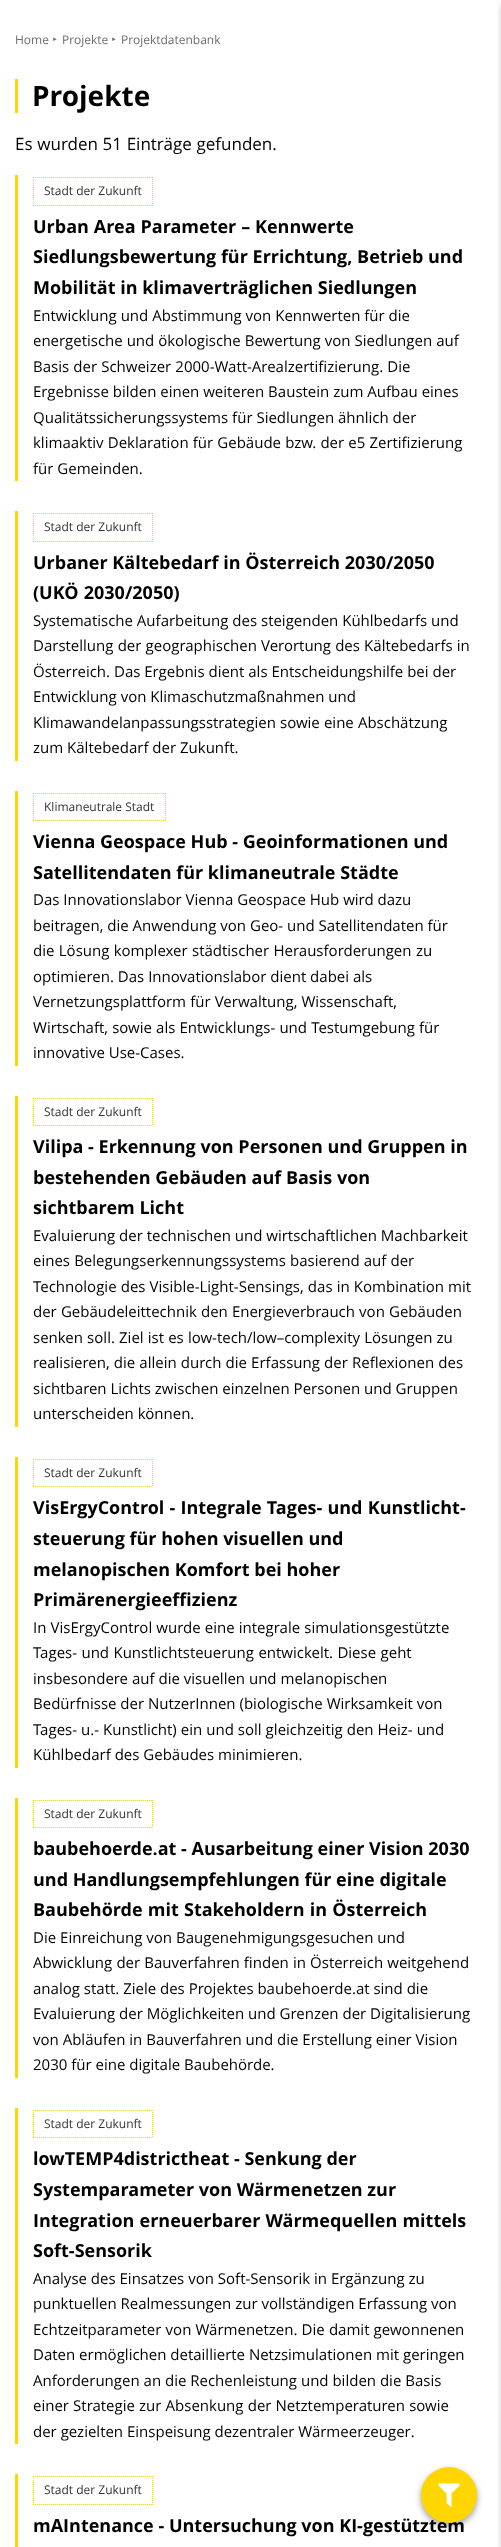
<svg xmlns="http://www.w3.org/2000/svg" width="501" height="2547">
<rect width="100%" height="100%" fill="#fff"/>
<text x="15" y="44" style="font-family:Open Sans;font-size:12px;fill:#6e6e6e">Home</text>
<text x="52" y="41" style="font-family:Liberation Sans;font-size:6px;fill:#6e6e6e">►</text>
<text x="62" y="44" style="font-family:Open Sans;font-size:12px;fill:#6e6e6e">Projekte</text>
<text x="111" y="41" style="font-family:Liberation Sans;font-size:6px;fill:#6e6e6e">►</text>
<text x="121" y="44" style="font-family:Open Sans;font-size:12px;fill:#6e6e6e">Projektdatenbank</text>
<rect x="15" y="79" width="3" height="34" fill="#ffd600"/>
<text x="32" y="106" style="font-family:Open Sans;font-size:28px;font-weight:bold;fill:#000">Projekte</text>
<text x="15" y="150" word-spacing="0.25" style="font-family:Open Sans;font-size:17px;fill:#000">Es wurden 51 Einträge gefunden.</text>
<rect x="15" y="175" width="3" height="306" fill="#ffd600"/>
<path d="M33 177.5h120" fill="none" stroke="#ffd600" stroke-dasharray="1 1"/>
<path d="M152.5 177v29" fill="none" stroke="#ffd600" stroke-dasharray="1 1"/>
<path d="M33 205.5h120" fill="none" stroke="#ffd600" stroke-dasharray="1 1"/>
<path d="M33.5 177v29" fill="none" stroke="#ffd600" stroke-dasharray="1 1"/>
<text x="44" y="195" style="font-family:Open Sans;font-size:12px;fill:#333">Stadt der Zukunft</text>
<text x="33" y="233" word-spacing="0.25" style="font-family:Open Sans;font-size:18px;font-weight:bold;fill:#000">Urban Area Parameter –</text>
<text x="255" y="233" style="font-family:Open Sans;font-size:18px;font-weight:bold;fill:#000">Kennwerte</text>
<text x="33" y="263" style="font-family:Open Sans;font-size:18px;font-weight:bold;fill:#000">Siedlungsbewertung für Errichtung, Betrieb und</text>
<text x="33" y="294" style="font-family:Open Sans;font-size:18px;font-weight:bold;fill:#000">Mobilität in klimaverträglichen Siedlungen</text>
<text x="33" y="321" style="font-family:Open Sans;font-size:15px;fill:#000">Entwicklung und Abstimmung von Kennwerten für die</text>
<text x="33" y="346" word-spacing="0.1" style="font-family:Open Sans;font-size:15px;fill:#000">energetische und ökologische Bewertung von Siedlungen auf</text>
<text x="33" y="372" word-spacing="0.25" style="font-family:Open Sans;font-size:15px;fill:#000">Basis der Schweizer 2000-Watt-Arealzertifizierung. Die</text>
<text x="33" y="397" style="font-family:Open Sans;font-size:15px;fill:#000">Ergebnisse bilden einen weiteren Baustein zum Aufbau eines</text>
<text x="33" y="423" style="font-family:Open Sans;font-size:15px;fill:#000">Qualitätssicherungssystems für Siedlungen ähnlich der</text>
<text x="33" y="448" word-spacing="0.25" style="font-family:Open Sans;font-size:15px;fill:#000">klimaaktiv Deklaration für Gebäude bzw. der e5 Zertifizierung</text>
<text x="33" y="474" style="font-family:Open Sans;font-size:15px;fill:#000">für Gemeinden.</text>
<rect x="15" y="511" width="3" height="250" fill="#ffd600"/>
<path d="M33 513.5h120" fill="none" stroke="#ffd600" stroke-dasharray="1 1"/>
<path d="M152.5 513v29" fill="none" stroke="#ffd600" stroke-dasharray="1 1"/>
<path d="M33 541.5h120" fill="none" stroke="#ffd600" stroke-dasharray="1 1"/>
<path d="M33.5 513v29" fill="none" stroke="#ffd600" stroke-dasharray="1 1"/>
<text x="44" y="531" style="font-family:Open Sans;font-size:12px;fill:#333">Stadt der Zukunft</text>
<text x="33" y="569" style="font-family:Open Sans;font-size:18px;font-weight:bold;fill:#000">Urbaner Kältebedarf in Österreich 2030/2050</text>
<text x="33" y="599" word-spacing="0.5" style="font-family:Open Sans;font-size:18px;font-weight:bold;fill:#000">(UKÖ 2030/2050)</text>
<text x="33" y="626" style="font-family:Open Sans;font-size:15px;fill:#000">Systematische Aufarbeitung des steigenden Kühlbedarfs und</text>
<text x="33" y="651" word-spacing="0.25" style="font-family:Open Sans;font-size:15px;fill:#000">Darstellung der geographischen Verortung des Kältebedarfs in</text>
<text x="33" y="677" style="font-family:Open Sans;font-size:15px;fill:#000">Österreich. Das Ergebnis dient als Entscheidungshilfe bei der</text>
<text x="33" y="702" style="font-family:Open Sans;font-size:15px;fill:#000">Entwicklung von Klimaschutzmaßnahmen und</text>
<text x="33" y="728" word-spacing="0.25" style="font-family:Open Sans;font-size:15px;fill:#000">Klimawandelanpassungsstrategien sowie eine Abschätzung</text>
<text x="33" y="753" style="font-family:Open Sans;font-size:15px;fill:#000">zum Kältebedarf der Zukunft.</text>
<rect x="15" y="791" width="3" height="275" fill="#ffd600"/>
<path d="M33 793.5h133" fill="none" stroke="#ffd600" stroke-dasharray="1 1"/>
<path d="M165.5 793v28" fill="none" stroke="#ffd600" stroke-dasharray="1 1"/>
<path d="M33 820.5h133" fill="none" stroke="#ffd600" stroke-dasharray="1 1"/>
<path d="M33.5 793v28" fill="none" stroke="#ffd600" stroke-dasharray="1 1"/>
<text x="44" y="811" style="font-family:Open Sans;font-size:12px;fill:#333">Klimaneutrale Stadt</text>
<text x="33" y="848" style="font-family:Open Sans;font-size:18px;font-weight:bold;fill:#000">Vienna Geospace Hub - Geoinformationen und</text>
<text x="33" y="879" style="font-family:Open Sans;font-size:18px;font-weight:bold;fill:#000">Satellitendaten für klimaneutrale Städte</text>
<text x="33" y="905" style="font-family:Open Sans;font-size:15px;fill:#000">Das Innovationslabor Vienna Geospace Hub wird dazu</text>
<text x="33" y="931" style="font-family:Open Sans;font-size:15px;fill:#000">beitragen, die Anwendung von Geo- und Satellitendaten für</text>
<text x="33" y="956" word-spacing="0.5" style="font-family:Open Sans;font-size:15px;fill:#000">die Lösung komplexer städtischer Herausforderungen zu</text>
<text x="33" y="982" style="font-family:Open Sans;font-size:15px;fill:#000">optimieren. Das Innovationslabor dient dabei als</text>
<text x="33" y="1007" word-spacing="0.25" style="font-family:Open Sans;font-size:15px;fill:#000">Vernetzungsplattform für Verwaltung, Wissenschaft,</text>
<text x="33" y="1033" word-spacing="0.25" style="font-family:Open Sans;font-size:15px;fill:#000">Wirtschaft, sowie als Entwicklungs- und Testumgebung für</text>
<text x="33" y="1058" style="font-family:Open Sans;font-size:15px;fill:#000">innovative Use-Cases.</text>
<rect x="15" y="1096" width="3" height="331" fill="#ffd600"/>
<path d="M33 1098.5h120" fill="none" stroke="#ffd600" stroke-dasharray="1 1"/>
<path d="M152.5 1098v28" fill="none" stroke="#ffd600" stroke-dasharray="1 1"/>
<path d="M33 1125.5h120" fill="none" stroke="#ffd600" stroke-dasharray="1 1"/>
<path d="M33.5 1098v28" fill="none" stroke="#ffd600" stroke-dasharray="1 1"/>
<text x="44" y="1116" style="font-family:Open Sans;font-size:12px;fill:#333">Stadt der Zukunft</text>
<text x="33" y="1153" style="font-family:Open Sans;font-size:18px;font-weight:bold;fill:#000">Vilipa - Erkennung von Personen und Gruppen in</text>
<text x="33" y="1184" style="font-family:Open Sans;font-size:18px;font-weight:bold;fill:#000">bestehenden Gebäuden auf Basis von</text>
<text x="33" y="1214" style="font-family:Open Sans;font-size:18px;font-weight:bold;fill:#000">sichtbarem Licht</text>
<text x="33" y="1241" style="font-family:Open Sans;font-size:15px;fill:#000">Evaluierung der technischen und wirtschaftlichen Machbarkeit</text>
<text x="33" y="1266" word-spacing="0.25" style="font-family:Open Sans;font-size:15px;fill:#000">eines Belegungserkennungssystems basierend auf der</text>
<text x="33" y="1292" word-spacing="0.25" style="font-family:Open Sans;font-size:15px;fill:#000">Technologie des Visible-Light-Sensings, das in Kombination mit</text>
<text x="33" y="1317" word-spacing="0.25" style="font-family:Open Sans;font-size:15px;fill:#000">der Gebäudeleittechnik den Energieverbrauch von Gebäuden</text>
<text x="33" y="1343" word-spacing="0.25" style="font-family:Open Sans;font-size:15px;fill:#000">senken soll. Ziel ist es low-tech/low–complexity Lösungen zu</text>
<text x="33" y="1368" word-spacing="0.25" style="font-family:Open Sans;font-size:15px;fill:#000">realisieren, die allein durch die Erfassung der Reflexionen des</text>
<text x="33" y="1394" style="font-family:Open Sans;font-size:15px;fill:#000">sichtbaren Lichts zwischen einzelnen Personen und Gruppen</text>
<text x="33" y="1419" style="font-family:Open Sans;font-size:15px;fill:#000">unterscheiden können.</text>
<rect x="15" y="1457" width="3" height="311" fill="#ffd600"/>
<path d="M33 1459.5h120" fill="none" stroke="#ffd600" stroke-dasharray="1 1"/>
<path d="M152.5 1459v28" fill="none" stroke="#ffd600" stroke-dasharray="1 1"/>
<path d="M33 1486.5h120" fill="none" stroke="#ffd600" stroke-dasharray="1 1"/>
<path d="M33.5 1459v28" fill="none" stroke="#ffd600" stroke-dasharray="1 1"/>
<text x="44" y="1477" style="font-family:Open Sans;font-size:12px;fill:#333">Stadt der Zukunft</text>
<text x="33" y="1514" word-spacing="0.5" style="font-family:Open Sans;font-size:18px;font-weight:bold;fill:#000">VisErgyControl - Integrale Tages- und Kunstlicht-</text>
<text x="33" y="1545" style="font-family:Open Sans;font-size:18px;font-weight:bold;fill:#000">steuerung für hohen visuellen und</text>
<text x="33" y="1576" style="font-family:Open Sans;font-size:18px;font-weight:bold;fill:#000">melanopischen Komfort bei hoher</text>
<text x="33" y="1606" style="font-family:Open Sans;font-size:18px;font-weight:bold;fill:#000">Primärenergieeffizienz</text>
<text x="33" y="1633" word-spacing="0.25" style="font-family:Open Sans;font-size:15px;fill:#000">In VisErgyControl wurde eine integrale simulationsgestützte</text>
<text x="33" y="1658" word-spacing="0.5" style="font-family:Open Sans;font-size:15px;fill:#000">Tages- und Kunstlichtsteuerung entwickelt. Diese geht</text>
<text x="33" y="1684" style="font-family:Open Sans;font-size:15px;fill:#000">insbesondere auf die visuellen und melanopischen</text>
<text x="33" y="1709" style="font-family:Open Sans;font-size:15px;fill:#000">Bedürfnisse der NutzerInnen (biologische Wirksamkeit von</text>
<text x="33" y="1735" word-spacing="0.1" style="font-family:Open Sans;font-size:15px;fill:#000">Tages- u.- Kunstlicht) ein und soll gleichzeitig den Heiz- und</text>
<text x="33" y="1760" style="font-family:Open Sans;font-size:15px;fill:#000">Kühlbedarf des Gebäudes minimieren.</text>
<rect x="15" y="1798" width="3" height="280" fill="#ffd600"/>
<path d="M33 1800.5h120" fill="none" stroke="#ffd600" stroke-dasharray="1 1"/>
<path d="M152.5 1800v28" fill="none" stroke="#ffd600" stroke-dasharray="1 1"/>
<path d="M33 1827.5h120" fill="none" stroke="#ffd600" stroke-dasharray="1 1"/>
<path d="M33.5 1800v28" fill="none" stroke="#ffd600" stroke-dasharray="1 1"/>
<text x="44" y="1818" style="font-family:Open Sans;font-size:12px;fill:#333">Stadt der Zukunft</text>
<text x="33" y="1855" style="font-family:Open Sans;font-size:18px;font-weight:bold;fill:#000">baubehoerde.at - Ausarbeitung einer Vision 2030</text>
<text x="33" y="1886" style="font-family:Open Sans;font-size:18px;font-weight:bold;fill:#000">und Handlungsempfehlungen für eine digitale</text>
<text x="33" y="1916" word-spacing="0.5" style="font-family:Open Sans;font-size:18px;font-weight:bold;fill:#000">Baubehörde mit Stakeholdern in Österreich</text>
<text x="33" y="1943" style="font-family:Open Sans;font-size:15px;fill:#000">Die Einreichung von Baugenehmigungsgesuchen und</text>
<text x="33" y="1968" word-spacing="0.25" style="font-family:Open Sans;font-size:15px;fill:#000">Abwicklung der Bauverfahren finden in Österreich weitgehend</text>
<text x="33" y="1994" style="font-family:Open Sans;font-size:15px;fill:#000">analog statt. Ziele des Projektes baubehoerde.at sind die</text>
<text x="33" y="2019" style="font-family:Open Sans;font-size:15px;fill:#000">Evaluierung der Möglichkeiten und Grenzen der Digitalisierung</text>
<text x="33" y="2045" style="font-family:Open Sans;font-size:15px;fill:#000">von Abläufen in Bauverfahren und die Erstellung einer Vision</text>
<text x="33" y="2070" style="font-family:Open Sans;font-size:15px;fill:#000">2030 für eine digitale Baubehörde.</text>
<rect x="15" y="2108" width="3" height="336" fill="#ffd600"/>
<path d="M33 2110.5h120" fill="none" stroke="#ffd600" stroke-dasharray="1 1"/>
<path d="M152.5 2110v28" fill="none" stroke="#ffd600" stroke-dasharray="1 1"/>
<path d="M33 2137.5h120" fill="none" stroke="#ffd600" stroke-dasharray="1 1"/>
<path d="M33.5 2110v28" fill="none" stroke="#ffd600" stroke-dasharray="1 1"/>
<text x="44" y="2128" style="font-family:Open Sans;font-size:12px;fill:#333">Stadt der Zukunft</text>
<text x="33" y="2165" style="font-family:Open Sans;font-size:18px;font-weight:bold;fill:#000">lowTEMP4districtheat - Senkung der</text>
<text x="33" y="2196" style="font-family:Open Sans;font-size:18px;font-weight:bold;fill:#000">Systemparameter von Wärmenetzen zur</text>
<text x="33" y="2227" word-spacing="0.5" style="font-family:Open Sans;font-size:18px;font-weight:bold;fill:#000">Integration erneuerbarer Wärmequellen mittels</text>
<text x="33" y="2257" style="font-family:Open Sans;font-size:18px;font-weight:bold;fill:#000">Soft-Sensorik</text>
<text x="33" y="2284" style="font-family:Open Sans;font-size:15px;fill:#000">Analyse des Einsatzes von Soft-Sensorik in Ergänzung zu</text>
<text x="33" y="2309" style="font-family:Open Sans;font-size:15px;fill:#000">punktuellen Realmessungen zur vollständigen Erfassung von</text>
<text x="33" y="2335" word-spacing="0.25" style="font-family:Open Sans;font-size:15px;fill:#000">Echtzeitparameter von Wärmenetzen. Die damit gewonnenen</text>
<text x="33" y="2360" style="font-family:Open Sans;font-size:15px;fill:#000">Daten ermöglichen detaillierte Netzsimulationen mit geringen</text>
<text x="33" y="2386" style="font-family:Open Sans;font-size:15px;fill:#000">Anforderungen an die Rechenleistung und bilden die Basis</text>
<text x="33" y="2411" word-spacing="0.25" style="font-family:Open Sans;font-size:15px;fill:#000">einer Strategie zur Absenkung der Netztemperaturen sowie</text>
<text x="33" y="2437" style="font-family:Open Sans;font-size:15px;fill:#000">der gezielten Einspeisung dezentraler Wärmeerzeuger.</text>
<rect x="15" y="2474" width="3" height="73" fill="#ffd600"/>
<path d="M33 2476.5h120" fill="none" stroke="#ffd600" stroke-dasharray="1 1"/>
<path d="M152.5 2476v29" fill="none" stroke="#ffd600" stroke-dasharray="1 1"/>
<path d="M33 2504.5h120" fill="none" stroke="#ffd600" stroke-dasharray="1 1"/>
<path d="M33.5 2476v29" fill="none" stroke="#ffd600" stroke-dasharray="1 1"/>
<text x="44" y="2494" style="font-family:Open Sans;font-size:12px;fill:#333">Stadt der Zukunft</text>
<text x="33" y="2532" style="font-family:Open Sans;font-size:18px;font-weight:bold;fill:#000">mAIntenance - Untersuchung von KI-gestütztem</text>
<rect x="421" y="2470" width="56" height="56" rx="28" fill="#0000003b" filter="blur(3px)"/>
<rect x="421" y="2470" width="56" height="56" rx="28" fill="#00000029" filter="blur(3px)"/>
<circle cx="449" cy="2495" r="28" fill="#ffd600"/>
<path d="M438.5 2483.5h21v2l-8 8v14l-5-4.5v-9.5l-8-8z" fill="#fff"/>
<rect x="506" y="5" width="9" height="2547" fill="#000" filter="blur(4.5px)"/>
</svg>
